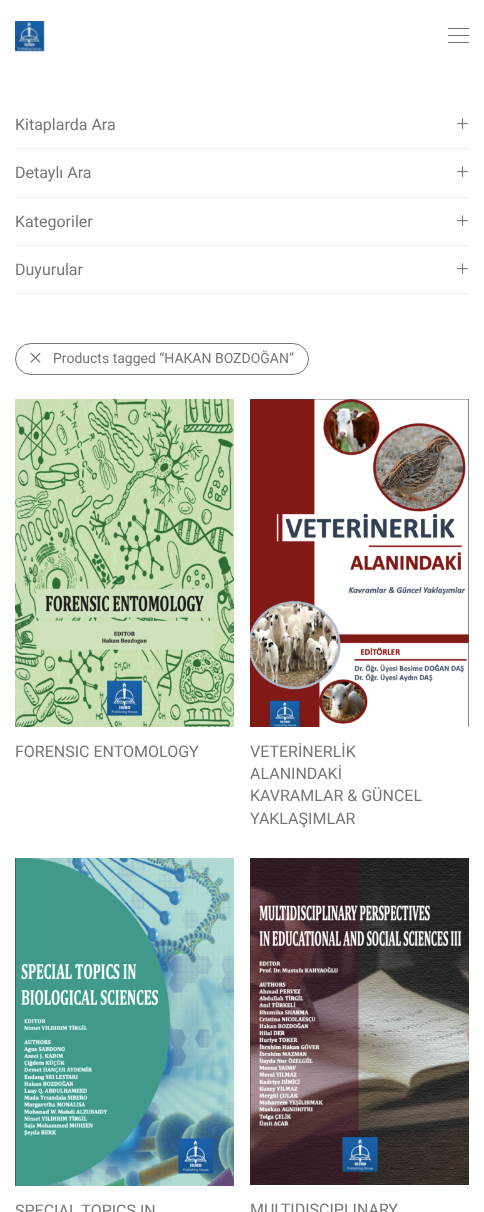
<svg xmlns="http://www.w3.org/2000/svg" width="484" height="1212">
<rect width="100%" height="100%" fill="#fff"/>
<image x="15" y="21" width="30" height="31" href="media/1.png"/>
<rect x="448" y="28" width="21" height="1" fill="#707070"/>
<rect x="448" y="35" width="21" height="1" fill="#707070"/>
<rect x="448" y="42" width="21" height="1" fill="#707070"/>
<text x="15" y="130" style="font-family:Roboto;font-size:16px;fill:#777">Kitaplarda Ara</text>
<image x="457" y="118" width="11" height="11" href="media/2.png"/>
<rect x="15" y="148" width="454" height="1" fill="#eee"/>
<text x="15" y="178" style="font-family:Roboto;font-size:16px;fill:#777">Detaylı Ara</text>
<image x="457" y="166" width="11" height="11" href="media/2.png"/>
<rect x="15" y="197" width="454" height="1" fill="#eee"/>
<text x="15" y="227" style="font-family:Roboto;font-size:16px;fill:#777">Kategoriler</text>
<image x="457" y="215" width="11" height="11" href="media/2.png"/>
<rect x="15" y="245" width="454" height="1" fill="#eee"/>
<rect x="15" y="293" width="454" height="1" fill="#eee"/>
<text x="15" y="275" style="font-family:Roboto;font-size:16px;fill:#777">Duyurular</text>
<image x="457" y="263" width="11" height="11" href="media/2.png"/>
<rect x="15.5" y="343.5" width="293" height="31" rx="15.5" fill="none" stroke="#777"/>
<image x="30" y="352" width="11" height="11" href="media/3.png"/>
<text x="53" y="363" style="font-family:Roboto;font-size:14px;fill:#777">Products tagged “HAKAN BOZDOĞAN”</text>
<image x="15" y="399" width="219" height="328" href="media/4.png"/>
<text x="15" y="757" style="font-family:Roboto;font-size:16px;fill:#777">FORENSIC ENTOMOLOGY</text>
<image x="250" y="399" width="219" height="328" href="media/5.png"/>
<text x="250" y="757" style="font-family:Roboto;font-size:16px;fill:#777">VETERİNERLİK</text>
<text x="250" y="779" style="font-family:Roboto;font-size:16px;fill:#777">ALANINDAKİ</text>
<text x="250" y="801" style="font-family:Roboto;font-size:16px;fill:#777">KAVRAMLAR &amp; GÜNCEL</text>
<text x="250" y="824" style="font-family:Roboto;font-size:16px;fill:#777">YAKLAŞIMLAR</text>
<image x="15" y="858" width="219" height="328" href="media/6.png"/>
<text x="15" y="1216" style="font-family:Roboto;font-size:16px;fill:#777">SPECIAL TOPICS IN</text>
<image x="250" y="858" width="219" height="327" href="media/7.png"/>
<text x="250" y="1215" style="font-family:Roboto;font-size:16px;fill:#777">MULTIDISCIPLINARY</text>
</svg>
